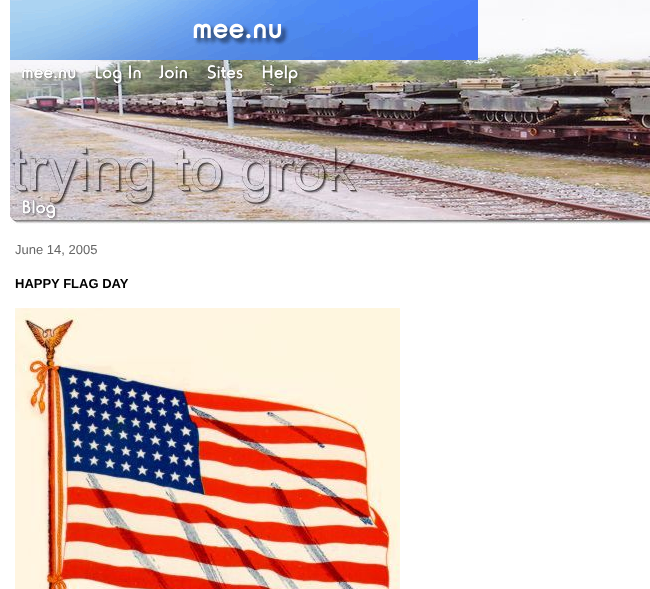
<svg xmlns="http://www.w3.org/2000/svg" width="650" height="589">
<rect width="100%" height="100%" fill="#fff"/>
<image x="478" y="0" width="172" height="60" href="media/1.png"/>
<image x="10" y="0" width="468" height="60" href="media/2.png"/>
<image x="10" y="60" width="640" height="25" href="media/3.png"/>
<image x="22" y="69" width="56" height="13" href="media/4.png"/>
<image x="95" y="65" width="49" height="20" href="media/5.png"/>
<image x="159" y="65" width="31" height="16" href="media/6.png"/>
<image x="207" y="64" width="38" height="18" href="media/7.png"/>
<image x="262" y="65" width="39" height="20" href="media/8.png"/>
<image x="10" y="85" width="640" height="110" href="media/9.png"/>
<image x="10" y="195" width="640" height="29" href="media/10.png"/>
<image x="22" y="200" width="36" height="20" href="media/11.png"/>
<text x="15" y="254" style="font-family:Liberation Sans;font-size:13px;fill:#666">June 14, 2005</text>
<text x="15" y="288" style="font-family:Liberation Sans;font-size:13px;font-weight:bold;fill:#000">HAPPY FLAG DAY</text>
<image x="15" y="308" width="385" height="281" href="media/12.png"/>
</svg>
